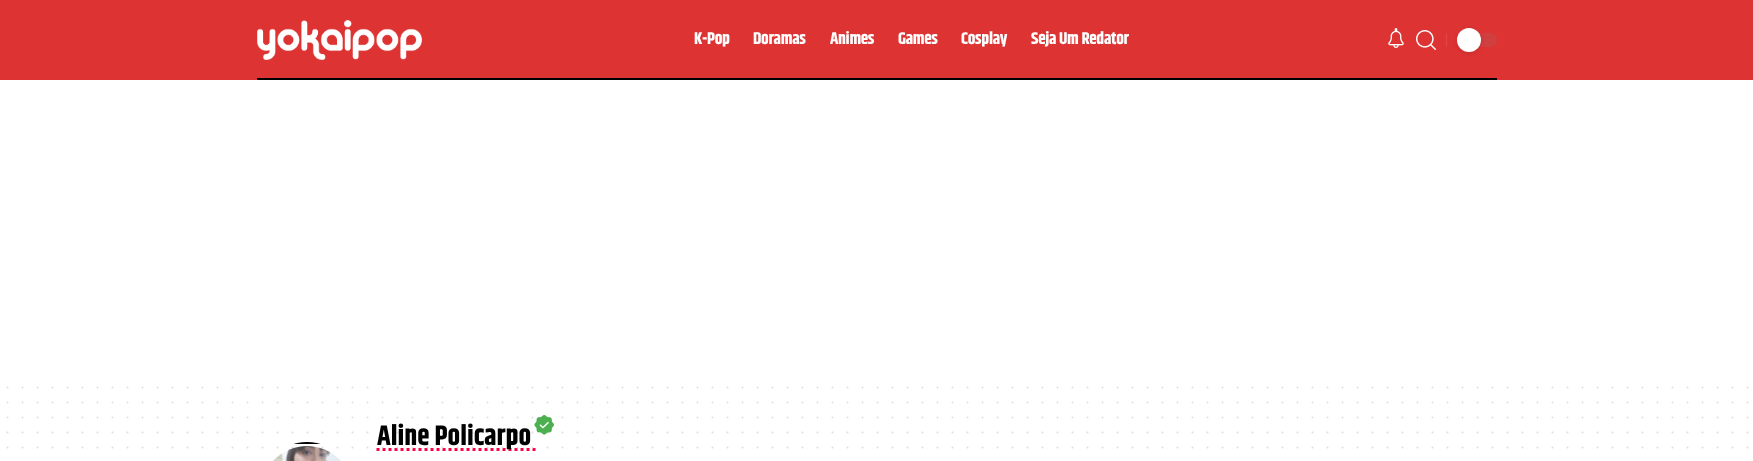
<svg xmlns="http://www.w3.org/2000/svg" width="1753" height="461">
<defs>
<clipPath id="clip1"><rect x="257" y="442" width="100" height="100" rx="50"/></clipPath>
</defs>
<rect width="100%" height="100%" fill="#fff"/>
<rect width="1753" height="80" fill="#d33"/>
<image x="257" y="20" width="165" height="40" href="media/1.png"/>
<text x="694" y="44" style="font-family:Khand;font-size:17px;font-weight:bold;letter-spacing:-0.3px;fill:#fff">K-Pop</text>
<text x="753" y="44" style="font-family:Khand;font-size:17px;font-weight:bold;letter-spacing:-0.3px;fill:#fff">Doramas</text>
<text x="830" y="44" style="font-family:Khand;font-size:17px;font-weight:bold;letter-spacing:-0.3px;fill:#fff">Animes</text>
<text x="898" y="44" style="font-family:Khand;font-size:17px;font-weight:bold;letter-spacing:-0.3px;fill:#fff">Games</text>
<text x="961" y="44" style="font-family:Khand;font-size:17px;font-weight:bold;letter-spacing:-0.3px;fill:#fff">Cosplay</text>
<text x="1031" y="44" style="font-family:Khand;font-size:17px;font-weight:bold;letter-spacing:-0.3px;fill:#fff">Seja Um Redator</text>
<image x="1388" y="28" width="16" height="20" href="media/2.png"/>
<image x="1416" y="30" width="20" height="20" href="media/3.png"/>
<rect x="1446" y="33" width="1" height="14" fill="#e04747"/>
<rect x="1457" y="33" width="40" height="14" rx="7" fill="#d04040"/>
<rect x="1457" y="29" width="24" height="24" rx="12" fill="#0000001f" filter="blur(2px)"/>
<circle cx="1469" cy="40" r="12" fill="#fff"/>
<rect x="257" y="78" width="1240" height="2" fill="#000"/>
<path d="M7.5 387.5h1740.2" fill="none" stroke="#dfdfdf" stroke-width="2" stroke-linecap="round" stroke-dasharray="0 15"/>
<path d="M7.5 402.5h1740.2" fill="none" stroke="#dfdfdf" stroke-width="2" stroke-linecap="round" stroke-dasharray="0 15"/>
<path d="M7.5 417.5h1740.2" fill="none" stroke="#dfdfdf" stroke-width="2" stroke-linecap="round" stroke-dasharray="0 15"/>
<path d="M376.5 449.5h159.5" fill="none" stroke="#ff0144" stroke-width="3" stroke-dasharray="3 3"/>
<text x="377" y="445" style="font-family:Khand;font-size:28px;font-weight:bold;fill:#000">Aline Policarpo</text>
<path d="M7.5 432.5h1740.2" fill="none" stroke="#28282826" stroke-width="2" stroke-linecap="round" stroke-dasharray="0 15"/>
<path d="M7.5 447.5h1740.2" fill="none" stroke="#dfdfdf" stroke-width="2" stroke-linecap="round" stroke-dasharray="0 15"/>
<g clip-path="url(#clip1)">
<rect x="293" y="442" width="28" height="2" fill="#000"/>
</g>
<image x="273" y="446" width="68" height="15" href="media/4.png"/>
<image x="534" y="415" width="20" height="20" href="media/5.png"/>
</svg>
